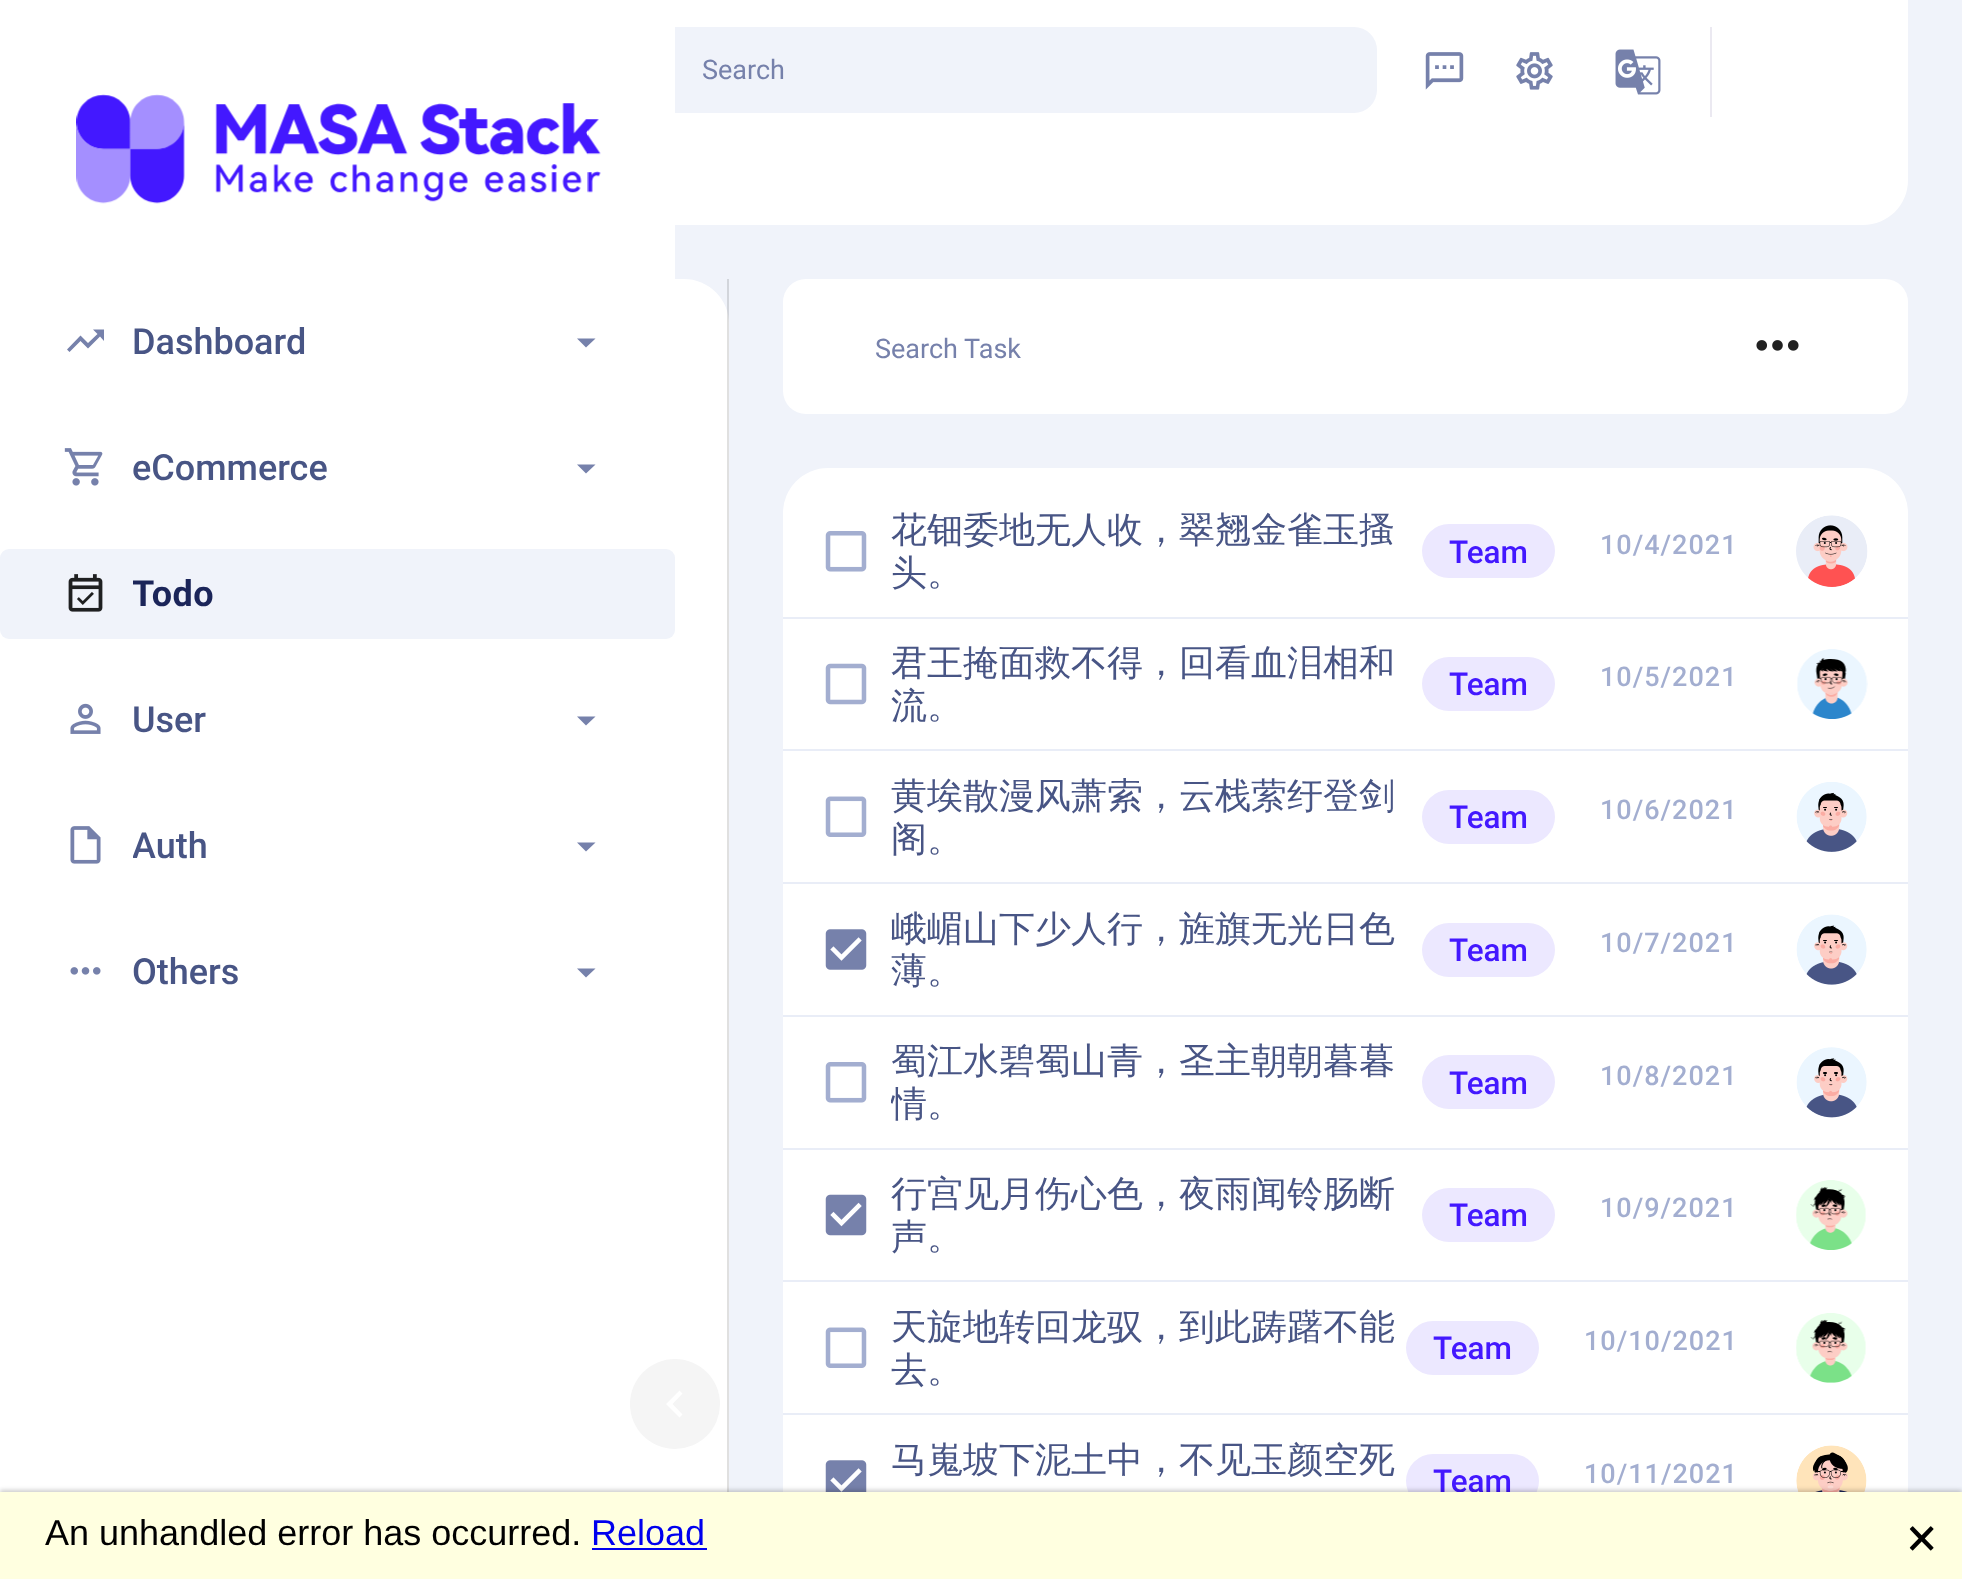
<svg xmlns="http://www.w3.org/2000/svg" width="1962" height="1579">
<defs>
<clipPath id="clip1"><rect x="133" y="574" width="479" height="43"/></clipPath>
<clipPath id="clip2"><rect x="133" y="826" width="335" height="40"/></clipPath>
<clipPath id="clip3"><rect x="891" y="1022" width="522" height="121"/></clipPath>
</defs>
<rect width="100%" height="100%" fill="#f0f3fa"/>
<rect x="675" width="1233" height="144" fill="#fff"/>
<rect x="612" y="27" width="765" height="86" rx="23" fill="#f0f3fa"/>
<text x="702" y="79" style="font-family:Roboto;font-size:27px;fill:#7681ab">Search</text>
<image x="1425" y="52" width="39" height="38" href="media/1.png"/>
<image x="1516" y="52" width="37" height="38" href="media/2.png"/>
<image x="1615" y="49" width="46" height="46" href="media/3.png"/>
<rect x="1710" y="27" width="2" height="90" fill="#ebe9f1"/>
<path d="M54 144h1854v36c0 25-20 45-45 45h-1764c-25 0-45-20-45-45z" fill="#fff"/>
<rect x="54" y="279" width="675" height="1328" rx="45" fill="#fff"/>
<rect width="675" height="1492" fill="#fff"/>
<image x="76" y="94" width="525" height="110" href="media/4.png"/>
<path d="M93 329.5l4.5 4.5l-9.5 9l-7.5-7.5l-13.5 14l2.5 2.5l11-11l7.5 7.5l12-12l4 4.5v-11.5z" fill="#7681ab"/>
<text x="132" y="354" style="font-family:Roboto;font-size:36px;font-weight:500;fill:#485585">Dashboard</text>
<path d="M577 338.5l9 9l9.5-9z" fill="#7681ab"/>
<image x="64" y="448" width="39" height="38" href="media/5.png"/>
<text x="132" y="480" style="font-family:Roboto;font-size:36px;font-weight:500;fill:#485585">eCommerce</text>
<path d="M577 464.5l9 9l9.5-9z" fill="#7681ab"/>
<rect y="549" width="675" height="90" rx="9" fill="#f0f3fa"/>
<image x="68" y="574" width="35" height="38" href="media/6.png"/>
<g clip-path="url(#clip1)">
<text x="132" y="606" style="font-family:Roboto;font-size:36px;font-weight:bold;letter-spacing:0.5px;fill:#1b2559">Todo</text>
</g>
<image x="70" y="703" width="31" height="31" href="media/7.png"/>
<text x="132" y="732" style="font-family:Roboto;font-size:36px;font-weight:500;fill:#485585">User</text>
<path d="M577 716.5l9 9l9.5-9z" fill="#7681ab"/>
<image x="70" y="826" width="31" height="38" href="media/8.png"/>
<g clip-path="url(#clip2)">
<text x="132" y="858" style="font-family:Roboto;font-size:36px;font-weight:500;fill:#485585">Auth</text>
</g>
<path d="M577 842.5l9 9l9.5-9z" fill="#7681ab"/>
<image x="70" y="967" width="31" height="8" href="media/9.png"/>
<text x="132" y="984" style="font-family:Roboto;font-size:36px;font-weight:500;fill:#485585">Others</text>
<path d="M577 968.5l9 9l9.5-9z" fill="#7681ab"/>
<circle cx="675" cy="1404" r="45" fill="#f5f5f5"/>
<path d="M682.5 1414.5l-10-10.5l10-10.5l-3-3l-13.5 13.5l13.5 13.5z" fill="#fff"/>
<rect x="727" y="279" width="2" height="1213" fill="#0000001f"/>
<rect x="783" y="279" width="1125" height="135" rx="23" fill="#fff"/>
<text x="875" y="358" style="font-family:Roboto;font-size:27px;fill:#7681ab">Search Task</text>
<image x="1756" y="340" width="43" height="11" href="media/10.png"/>
<rect x="783" y="468" width="1125" height="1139" rx="45" fill="#fff"/>
<image x="825" y="531" width="42" height="41" href="media/11.png"/>
<text x="891" y="542" style="font-family:WenQuanYi Zen Hei;font-size:36px;font-weight:500;fill:#485585">花钿委地无人收，翠翘金雀玉搔</text>
<text x="891" y="585" style="font-family:WenQuanYi Zen Hei;font-size:36px;font-weight:500;fill:#485585">头。</text>
<rect x="1422" y="524" width="133" height="54" rx="27" fill="#ece8ff"/>
<text x="1449" y="563" style="font-family:Roboto;font-size:31.5px;font-weight:500;fill:#4318ff">Team</text>
<text x="1600" y="554" style="font-family:Roboto;font-size:27px;font-weight:500;letter-spacing:1px;fill:#a3aed0">10/4/2021</text>
<image x="1796" y="515" width="72" height="72" href="media/12.png"/>
<rect x="783" y="617" width="1125" height="2" fill="#e9edf7"/>
<image x="825" y="663" width="42" height="42" href="media/13.png"/>
<text x="891" y="675" style="font-family:WenQuanYi Zen Hei;font-size:36px;font-weight:500;fill:#485585">君王掩面救不得，回看血泪相和</text>
<text x="891" y="718" style="font-family:WenQuanYi Zen Hei;font-size:36px;font-weight:500;fill:#485585">流。</text>
<rect x="1422" y="657" width="133" height="54" rx="27" fill="#ece8ff"/>
<text x="1449" y="695" style="font-family:Roboto;font-size:31.5px;font-weight:500;fill:#4318ff">Team</text>
<text x="1600" y="686" style="font-family:Roboto;font-size:27px;font-weight:500;letter-spacing:1px;fill:#a3aed0">10/5/2021</text>
<image x="1797" y="649" width="71" height="70" href="media/14.png"/>
<rect x="783" y="749" width="1125" height="2" fill="#e9edf7"/>
<image x="825" y="796" width="42" height="41" href="media/15.png"/>
<text x="891" y="808" style="font-family:WenQuanYi Zen Hei;font-size:36px;font-weight:500;fill:#485585">黄埃散漫风萧索，云栈萦纡登剑</text>
<text x="891" y="851" style="font-family:WenQuanYi Zen Hei;font-size:36px;font-weight:500;fill:#485585">阁。</text>
<rect x="1422" y="790" width="133" height="54" rx="27" fill="#ece8ff"/>
<text x="1449" y="828" style="font-family:Roboto;font-size:31.5px;font-weight:500;fill:#4318ff">Team</text>
<text x="1600" y="819" style="font-family:Roboto;font-size:27px;font-weight:500;letter-spacing:1px;fill:#a3aed0">10/6/2021</text>
<image x="1796" y="782" width="71" height="70" href="media/16.png"/>
<rect x="783" y="882" width="1125" height="2" fill="#e9edf7"/>
<image x="825" y="929" width="42" height="41" href="media/17.png"/>
<text x="891" y="941" style="font-family:WenQuanYi Zen Hei;font-size:36px;font-weight:500;fill:#485585">峨嵋山下少人行，旌旗无光日色</text>
<text x="891" y="983" style="font-family:WenQuanYi Zen Hei;font-size:36px;font-weight:500;fill:#485585">薄。</text>
<rect x="1422" y="923" width="133" height="54" rx="27" fill="#ece8ff"/>
<text x="1449" y="961" style="font-family:Roboto;font-size:31.5px;font-weight:500;fill:#4318ff">Team</text>
<text x="1600" y="952" style="font-family:Roboto;font-size:27px;font-weight:500;letter-spacing:1px;fill:#a3aed0">10/7/2021</text>
<image x="1796" y="914" width="71" height="71" href="media/18.png"/>
<rect x="783" y="1015" width="1125" height="2" fill="#e9edf7"/>
<image x="825" y="1062" width="42" height="41" href="media/11.png"/>
<text x="891" y="1073" style="font-family:WenQuanYi Zen Hei;font-size:36px;font-weight:500;fill:#485585">蜀江水碧蜀山青，圣主朝朝暮暮</text>
<g clip-path="url(#clip3)">
<text x="891" y="1116" style="font-family:WenQuanYi Zen Hei;font-size:36px;font-weight:500;fill:#485585">情。</text>
</g>
<rect x="1422" y="1055" width="133" height="54" rx="27" fill="#ece8ff"/>
<text x="1449" y="1094" style="font-family:Roboto;font-size:31.5px;font-weight:500;fill:#4318ff">Team</text>
<text x="1600" y="1085" style="font-family:Roboto;font-size:27px;font-weight:500;letter-spacing:1px;fill:#a3aed0">10/8/2021</text>
<image x="1796" y="1047" width="71" height="71" href="media/19.png"/>
<rect x="783" y="1148" width="1125" height="2" fill="#e9edf7"/>
<image x="825" y="1194" width="42" height="42" href="media/20.png"/>
<text x="891" y="1206" style="font-family:WenQuanYi Zen Hei;font-size:36px;font-weight:500;fill:#485585">行宫见月伤心色，夜雨闻铃肠断</text>
<text x="891" y="1249" style="font-family:WenQuanYi Zen Hei;font-size:36px;font-weight:500;fill:#485585">声。</text>
<rect x="1422" y="1188" width="133" height="54" rx="27" fill="#ece8ff"/>
<text x="1449" y="1226" style="font-family:Roboto;font-size:31.5px;font-weight:500;fill:#4318ff">Team</text>
<text x="1600" y="1217" style="font-family:Roboto;font-size:27px;font-weight:500;letter-spacing:1px;fill:#a3aed0">10/9/2021</text>
<image x="1796" y="1180" width="70" height="70" href="media/21.png"/>
<rect x="783" y="1280" width="1125" height="2" fill="#e9edf7"/>
<image x="825" y="1327" width="42" height="41" href="media/15.png"/>
<text x="891" y="1339" style="font-family:WenQuanYi Zen Hei;font-size:36px;font-weight:500;fill:#485585">天旋地转回龙驭，到此踌躇不能</text>
<text x="891" y="1382" style="font-family:WenQuanYi Zen Hei;font-size:36px;font-weight:500;fill:#485585">去。</text>
<rect x="1406" y="1321" width="133" height="54" rx="27" fill="#ece8ff"/>
<text x="1433" y="1359" style="font-family:Roboto;font-size:31.5px;font-weight:500;fill:#4318ff">Team</text>
<text x="1584" y="1350" style="font-family:Roboto;font-size:27px;font-weight:500;letter-spacing:1px;fill:#a3aed0">10/10/2021</text>
<image x="1796" y="1313" width="70" height="70" href="media/22.png"/>
<rect x="783" y="1413" width="1125" height="2" fill="#e9edf7"/>
<image x="825" y="1460" width="42" height="32" href="media/23.png"/>
<text x="891" y="1472" style="font-family:WenQuanYi Zen Hei;font-size:36px;font-weight:500;fill:#485585">马嵬坡下泥土中，不见玉颜空死</text>
<rect x="1406" y="1454" width="133" height="54" rx="27" fill="#ece8ff"/>
<text x="1433" y="1492" style="font-family:Roboto;font-size:31.5px;font-weight:500;fill:#4318ff">Team</text>
<text x="1584" y="1483" style="font-family:Roboto;font-size:27px;font-weight:500;letter-spacing:1px;fill:#a3aed0">10/11/2021</text>
<image x="1796" y="1445" width="71" height="47" href="media/24.png"/>
<rect y="1490" width="1962" height="87" fill="#00000033" filter="blur(2px)"/>
<rect y="1492" width="1962" height="87" fill="#ffffe0"/>
<text x="45" y="1545" style="font-family:Liberation Sans;font-size:36px;fill:#000">An unhandled error has occurred.</text>
<text x="591" y="1545" style="font-family:Liberation Sans;font-size:36px;fill:#00e">Reload</text>
<rect x="592" y="1548" width="115" height="2" fill="#00e"/>
<text x="1908" y="1548" style="font-family:'Noto Sans Symbols 2';font-size:36px;fill:#000">🗙</text>
</svg>
